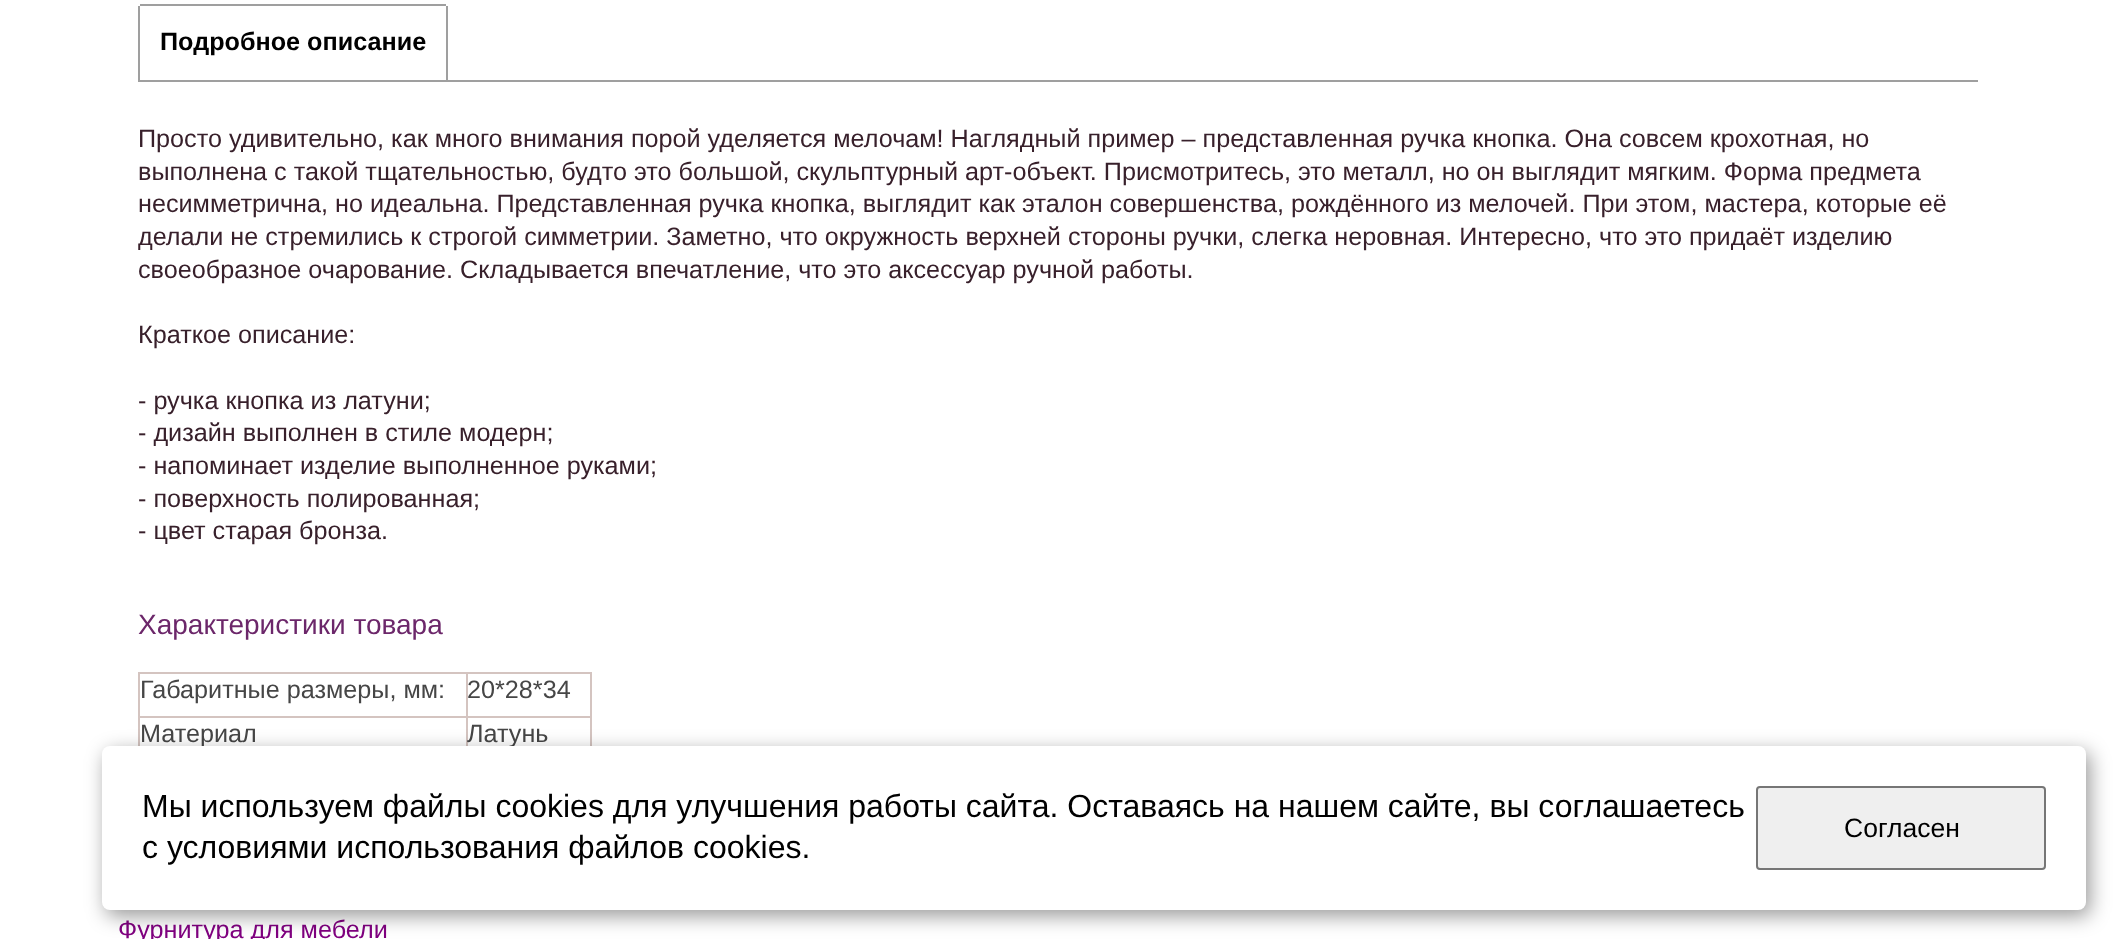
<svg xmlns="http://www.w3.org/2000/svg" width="2115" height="939">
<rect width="100%" height="100%" fill="#fff"/>
<rect x="140" y="4" width="306" height="2" fill="#9f9f9f"/>
<rect x="446" y="6" width="2" height="74" fill="#9f9f9f"/>
<rect x="138" y="6" width="2" height="74" fill="#9f9f9f"/>
<text x="160" y="50" style="font-family:Liberation Sans;font-size:25.2px;font-weight:bold;fill:#000">Подробное описание</text>
<rect x="138" y="80" width="1840" height="2" fill="#9f9f9f"/>
<text x="138" y="147" style="font-family:Liberation Sans;font-size:25.2px;fill:#38202b">Просто удивительно, как много внимания порой уделяется мелочам! Наглядный пример – представленная ручка кнопка. Она совсем крохотная, но</text>
<text x="138" y="180" style="font-family:Liberation Sans;font-size:25.2px;fill:#38202b">выполнена с такой тщательностью, будто это большой, скульптурный арт-объект. Присмотритесь, это металл, но он выглядит мягким. Форма предмета</text>
<text x="138" y="212" style="font-family:Liberation Sans;font-size:25.2px;fill:#38202b">несимметрична, но идеальна. Представленная ручка кнопка, выглядит как эталон совершенства, рождённого из мелочей. При этом, мастера, которые её</text>
<text x="138" y="245" style="font-family:Liberation Sans;font-size:25.2px;fill:#38202b">делали не стремились к строгой симметрии. Заметно, что окружность верхней стороны ручки, слегка неровная. Интересно, что это придаёт изделию</text>
<text x="138" y="278" style="font-family:Liberation Sans;font-size:25.2px;fill:#38202b">своеобразное очарование. Складывается впечатление, что это аксессуар ручной работы.</text>
<text x="138" y="343" style="font-family:Liberation Sans;font-size:25.2px;fill:#38202b">Краткое описание:</text>
<text x="138" y="409" style="font-family:Liberation Sans;font-size:25.2px;fill:#38202b">- ручка кнопка из латуни;</text>
<text x="138" y="441" style="font-family:Liberation Sans;font-size:25.2px;fill:#38202b">- дизайн выполнен в стиле модерн;</text>
<text x="138" y="474" style="font-family:Liberation Sans;font-size:25.2px;fill:#38202b">- напоминает изделие выполненное руками;</text>
<text x="138" y="507" style="font-family:Liberation Sans;font-size:25.2px;fill:#38202b">- поверхность полированная;</text>
<text x="138" y="539" style="font-family:Liberation Sans;font-size:25.2px;fill:#38202b">- цвет старая бронза.</text>
<text x="138" y="634" style="font-family:Liberation Sans;font-size:28px;fill:#6c276a">Характеристики товара</text>
<rect x="138" y="672" width="454" height="2" fill="#d4c4c0"/>
<rect x="590" y="672" width="2" height="74" fill="#d4c4c0"/>
<rect x="138" y="672" width="2" height="74" fill="#d4c4c0"/>
<text x="140" y="698" style="font-family:Liberation Sans;font-size:25.2px;fill:#464646">Габаритные размеры, мм:</text>
<rect x="466" y="716" width="126" height="2" fill="#d4c4c0"/>
<rect x="466" y="716" width="2" height="30" fill="#d4c4c0"/>
<rect x="138" y="716" width="330" height="2" fill="#d4c4c0"/>
<rect x="466" y="672" width="2" height="46" fill="#d4c4c0"/>
<text x="467" y="698" style="font-family:Liberation Sans;font-size:25.2px;fill:#464646">20*28*34</text>
<text x="140" y="742" style="font-family:Liberation Sans;font-size:25.2px;fill:#464646">Материал</text>
<text x="467" y="742" style="font-family:Liberation Sans;font-size:25.2px;fill:#464646">Латунь</text>
<text x="118" y="938" style="font-family:Liberation Sans;font-size:25.2px;fill:#800080">Фурнитура для мебели</text>
<rect x="106" y="752" width="1984" height="164" rx="8" fill="#00000066" filter="blur(10px)"/>
<rect x="102" y="746" width="1984" height="164" rx="8" fill="#fff"/>
<text x="142" y="817" style="font-family:Liberation Sans;font-size:32px;fill:#000">Мы используем файлы cookies для улучшения работы сайта. Оставаясь на нашем сайте, вы соглашаетесь</text>
<text x="142" y="858" style="font-family:Liberation Sans;font-size:32px;fill:#000">с условиями использования файлов cookies.</text>
<rect x="1757" y="787" width="288" height="82" rx="3" fill="#efefef" stroke="#767676" stroke-width="2"/>
<text x="1844" y="837" style="font-family:Liberation Sans;font-size:26.5px;fill:#000">Согласен</text>
</svg>
